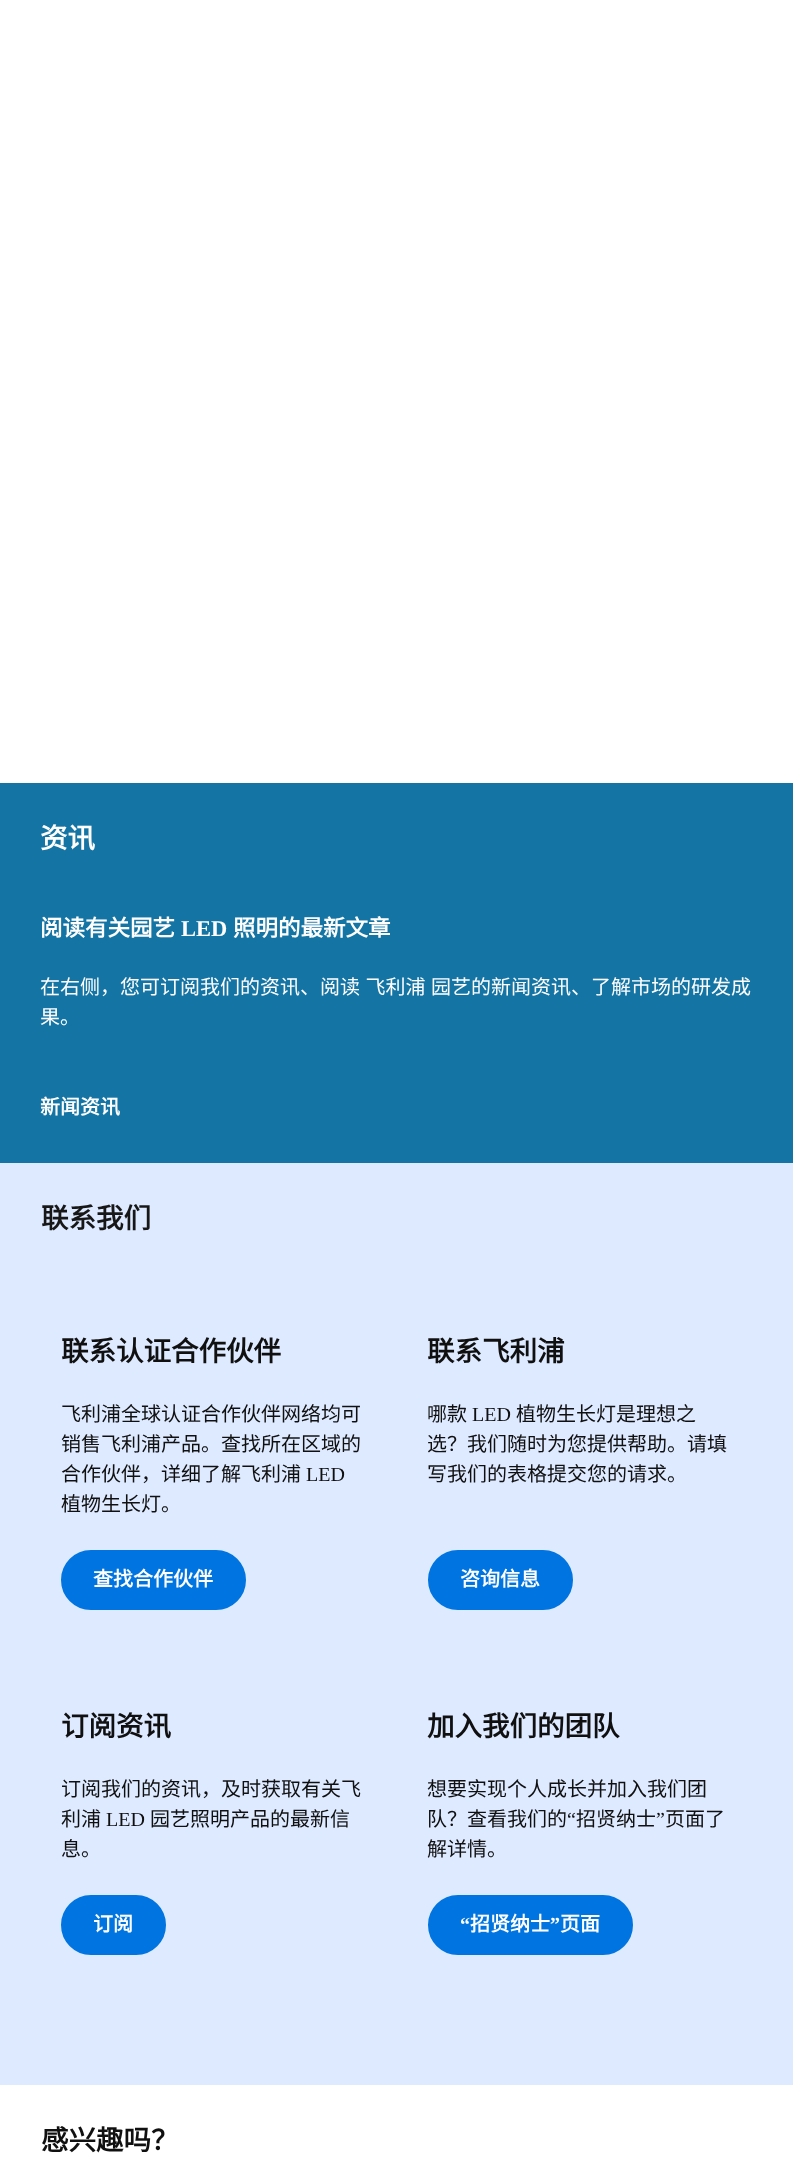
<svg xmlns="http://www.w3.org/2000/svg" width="793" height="2179">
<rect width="100%" height="100%" fill="#fff"/>
<rect y="783" width="793" height="380" fill="#1474a4"/>
<text x="40" y="848" style="font-family:Noto Sans CJK SC;font-size:27.5px;font-weight:bold;fill:#fff">资讯</text>
<text x="40" y="936" style="font-family:Noto Sans CJK SC;font-size:22.5px;font-weight:bold;fill:#fff">阅读有关园艺</text>
<text x="181" y="936" style="font-family:Liberation Serif;font-size:22.5px;font-weight:bold;fill:#fff">LED</text>
<text x="233" y="936" style="font-family:Noto Sans CJK SC;font-size:22.5px;font-weight:bold;fill:#fff">照明的最新文章</text>
<text x="40" y="994" word-spacing="1" style="font-family:Noto Sans CJK SC;font-size:20px;fill:#fff">在右侧，您可订阅我们的资讯、阅读 飞利浦 园艺的新闻资讯、了解市场的研发成</text>
<text x="40" y="1024" style="font-family:Noto Sans CJK SC;font-size:20px;fill:#fff">果。</text>
<text x="40" y="1114" style="font-family:Noto Sans CJK SC;font-size:20px;font-weight:bold;fill:#fff">新闻资讯</text>
<rect y="1163" width="793" height="922" fill="#deeaff"/>
<text x="41" y="1228" style="font-family:Noto Sans CJK SC;font-size:27.5px;font-weight:bold;fill:#171717">联系我们</text>
<text x="61" y="1361" style="font-family:Noto Sans CJK SC;font-size:27.5px;font-weight:bold;fill:#101010">联系认证合作伙伴</text>
<text x="61" y="1421" style="font-family:Noto Sans CJK SC;font-size:20px;fill:#101010">飞利浦全球认证合作伙伴网络均可</text>
<text x="61" y="1451" style="font-family:Noto Sans CJK SC;font-size:20px;fill:#101010">销售飞利浦产品。查找所在区域的</text>
<text x="61" y="1481" style="font-family:Noto Sans CJK SC;font-size:20px;fill:#101010">合作伙伴，详细了解飞利浦</text>
<text x="306" y="1481" style="font-family:Liberation Serif;font-size:20px;fill:#101010">LED</text>
<text x="61" y="1511" style="font-family:Noto Sans CJK SC;font-size:20px;fill:#101010">植物生长灯。</text>
<rect x="62.5" y="1551.5" width="182" height="57" rx="28.5" fill="#0074e0" stroke="#0074e0" stroke-width="3"/>
<text x="93" y="1586" style="font-family:Noto Sans CJK SC;font-size:20px;font-weight:bold;fill:#fff">查找合作伙伴</text>
<text x="427" y="1361" style="font-family:Noto Sans CJK SC;font-size:27.5px;font-weight:bold;fill:#101010">联系飞利浦</text>
<text x="427" y="1421" style="font-family:Noto Sans CJK SC;font-size:20px;fill:#101010">哪款</text>
<text x="472" y="1421" style="font-family:Liberation Serif;font-size:20px;fill:#101010">LED</text>
<text x="516" y="1421" style="font-family:Noto Sans CJK SC;font-size:20px;fill:#101010">植物生长灯是理想之</text>
<text x="427" y="1451" style="font-family:Noto Sans CJK SC;font-size:20px;fill:#101010">选？我们随时为您提供帮助。请填</text>
<text x="427" y="1481" style="font-family:Noto Sans CJK SC;font-size:20px;fill:#101010">写我们的表格提交您的请求。</text>
<rect x="429.5" y="1551.5" width="142" height="57" rx="28.5" fill="#0074e0" stroke="#0074e0" stroke-width="3"/>
<text x="460" y="1586" style="font-family:Noto Sans CJK SC;font-size:20px;font-weight:bold;fill:#fff">咨询信息</text>
<text x="61" y="1736" style="font-family:Noto Sans CJK SC;font-size:27.5px;font-weight:bold;fill:#101010">订阅资讯</text>
<text x="61" y="1796" style="font-family:Noto Sans CJK SC;font-size:20px;fill:#101010">订阅我们的资讯，及时获取有关飞</text>
<text x="61" y="1826" style="font-family:Noto Sans CJK SC;font-size:20px;fill:#101010">利浦</text>
<text x="106" y="1826" style="font-family:Liberation Serif;font-size:20px;fill:#101010">LED</text>
<text x="150" y="1826" style="font-family:Noto Sans CJK SC;font-size:20px;fill:#101010">园艺照明产品的最新信</text>
<text x="61" y="1856" style="font-family:Noto Sans CJK SC;font-size:20px;fill:#101010">息。</text>
<rect x="62.5" y="1896.5" width="102" height="57" rx="28.5" fill="#0074e0" stroke="#0074e0" stroke-width="3"/>
<text x="93" y="1931" style="font-family:Noto Sans CJK SC;font-size:20px;font-weight:bold;fill:#fff">订阅</text>
<text x="427" y="1736" style="font-family:Noto Sans CJK SC;font-size:27.5px;font-weight:bold;fill:#101010">加入我们的团队</text>
<text x="427" y="1796" style="font-family:Noto Sans CJK SC;font-size:20px;fill:#101010">想要实现个人成长并加入我们团</text>
<text x="427" y="1826" style="font-family:Noto Sans CJK SC;font-size:20px;fill:#101010">队？查看我们的</text>
<text x="567" y="1826" style="font-family:Liberation Serif;font-size:20px;fill:#101010">“</text>
<text x="576" y="1826" style="font-family:Noto Sans CJK SC;font-size:20px;fill:#101010">招贤纳士</text>
<text x="656" y="1826" style="font-family:Liberation Serif;font-size:20px;fill:#101010">”</text>
<text x="665" y="1826" style="font-family:Noto Sans CJK SC;font-size:20px;fill:#101010">页面了</text>
<text x="427" y="1856" style="font-family:Noto Sans CJK SC;font-size:20px;fill:#101010">解详情。</text>
<rect x="429.5" y="1896.5" width="202" height="57" rx="28.5" fill="#0074e0" stroke="#0074e0" stroke-width="3"/>
<text x="460" y="1931" style="font-family:Liberation Serif;font-size:20px;font-weight:bold;fill:#fff">“</text>
<text x="470" y="1931" style="font-family:Noto Sans CJK SC;font-size:20px;font-weight:bold;fill:#fff">招贤纳士</text>
<text x="550" y="1931" style="font-family:Liberation Serif;font-size:20px;font-weight:bold;fill:#fff">”</text>
<text x="560" y="1931" style="font-family:Noto Sans CJK SC;font-size:20px;font-weight:bold;fill:#fff">页面</text>
<text x="41" y="2150" style="font-family:Noto Sans CJK SC;font-size:27.5px;font-weight:bold;fill:#101010">感兴趣吗？</text>
</svg>
